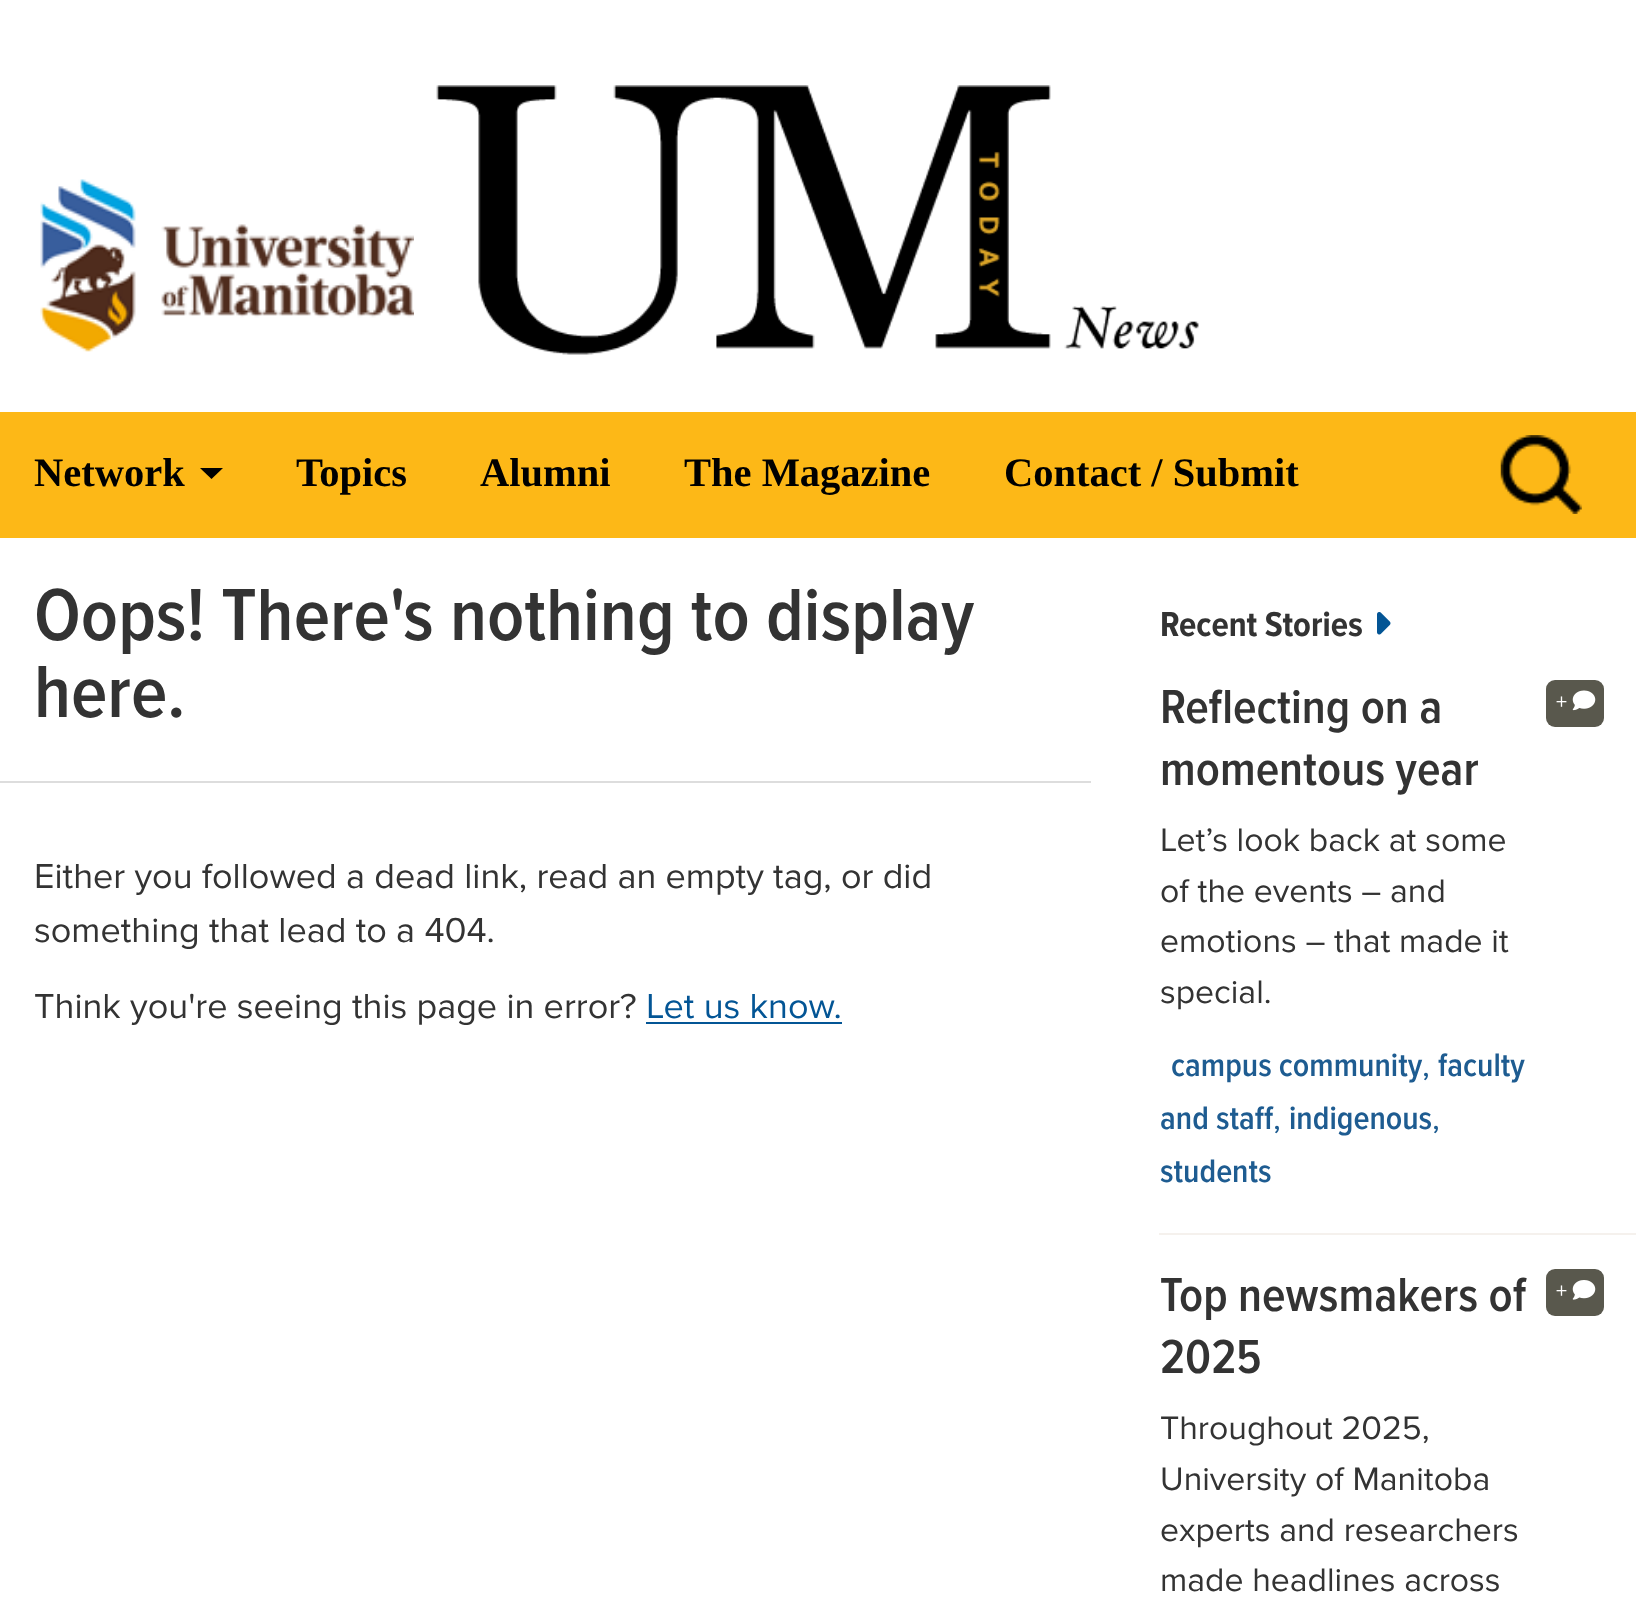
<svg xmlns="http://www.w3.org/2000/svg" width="1636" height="1600">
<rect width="100%" height="100%" fill="#fff"/>
<image x="40" y="179" width="374" height="173" href="media/1.png"/>
<image x="436" y="85" width="763" height="270" href="media/2.png"/>
<rect y="412" width="1636" height="126" fill="#fdb817"/>
<text x="34" y="486" style="font-family:Liberation Serif;font-size:40.5px;font-weight:bold;fill:#000">Network</text>
<path d="M200 468h23l-11.5 11z" fill="#000"/>
<text x="296" y="486" style="font-family:Liberation Serif;font-size:40.5px;font-weight:bold;fill:#000">Topics</text>
<text x="480" y="486" style="font-family:Liberation Serif;font-size:40.5px;font-weight:bold;fill:#000">Alumni</text>
<text x="684" y="486" style="font-family:Liberation Serif;font-size:40.5px;font-weight:bold;fill:#000">The Magazine</text>
<text x="1004" y="486" style="font-family:Liberation Serif;font-size:40.5px;font-weight:bold;fill:#000">Contact / Submit</text>
<image x="1500" y="435" width="82" height="79" href="media/3.png"/>
<text x="34" y="640" style="font-family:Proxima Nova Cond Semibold;font-size:76.5px;font-weight:600;fill:#333">Oops! There's nothing to display</text>
<text x="34" y="717" style="font-family:Proxima Nova Cond Semibold;font-size:76.5px;font-weight:600;fill:#333">here.</text>
<rect y="781" width="1091" height="2" fill="#ddd"/>
<text x="34" y="888" style="font-family:Proxima Nova;font-size:36px;fill:#333">Either you followed a dead link, read an empty tag, or did</text>
<text x="34" y="942" style="font-family:Proxima Nova;font-size:36px;fill:#333">something that lead to a 404.</text>
<text x="34" y="1018" style="font-family:Proxima Nova;font-size:36px;fill:#333">Think you're seeing this page in error?</text>
<text x="646" y="1018" style="font-family:Proxima Nova;font-size:36px;fill:#035595">Let us know.</text>
<rect x="646" y="1022" width="196" height="2" fill="#035595"/>
<text x="1160" y="636" style="font-family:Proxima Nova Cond;font-size:36px;font-weight:bold;fill:#333">Recent Stories</text>
<image x="1377" y="612" width="14" height="23" href="media/4.png"/>
<text x="1160" y="723" style="font-family:Proxima Nova Cond Semibold;font-size:49.5px;font-weight:600;fill:#333">Reflecting on a</text>
<text x="1160" y="785" style="font-family:Proxima Nova Cond Semibold;font-size:49.5px;font-weight:600;fill:#333">momentous year</text>
<rect x="1546" y="680" width="58" height="47" rx="9" fill="#59584d"/>
<text x="1556" y="709" style="font-family:Proxima Nova;font-size:22px;fill:#fff">+</text>
<image x="1572" y="690" width="24" height="21" href="media/5.png"/>
<text x="1160" y="851" style="font-family:Proxima Nova;font-size:33.75px;fill:#333">Let’s look back at some</text>
<text x="1160" y="902" style="font-family:Proxima Nova;font-size:33.75px;fill:#333">of the events – and</text>
<text x="1160" y="952" style="font-family:Proxima Nova;font-size:33.75px;fill:#333">emotions – that made it</text>
<text x="1160" y="1003" style="font-family:Proxima Nova;font-size:33.75px;fill:#333">special.</text>
<text x="1171" y="1076" style="font-family:Proxima Nova Cond Semibold;font-size:33.75px;font-weight:600;fill:#1e5c91">campus community</text>
<text x="1422" y="1076" style="font-family:Proxima Nova;font-size:33.75px;fill:#1e5c91">,</text>
<text x="1438" y="1076" style="font-family:Proxima Nova Cond Semibold;font-size:33.75px;font-weight:600;fill:#1e5c91">faculty</text>
<text x="1160" y="1129" style="font-family:Proxima Nova Cond Semibold;font-size:33.75px;font-weight:600;fill:#1e5c91">and staff</text>
<text x="1273" y="1129" style="font-family:Proxima Nova;font-size:33.75px;fill:#1e5c91">,</text>
<text x="1289" y="1129" style="font-family:Proxima Nova Cond Semibold;font-size:33.75px;font-weight:600;fill:#1e5c91">indigenous</text>
<text x="1432" y="1129" style="font-family:Proxima Nova;font-size:33.75px;fill:#1e5c91">,</text>
<text x="1160" y="1182" style="font-family:Proxima Nova Cond Semibold;font-size:33.75px;font-weight:600;fill:#1e5c91">students</text>
<rect x="1159" y="1233" width="477" height="2" fill="#f5f1ed"/>
<text x="1160" y="1311" style="font-family:Proxima Nova Cond Semibold;font-size:49.5px;font-weight:600;fill:#333">Top newsmakers of</text>
<text x="1160" y="1373" style="font-family:Proxima Nova Cond Semibold;font-size:49.5px;font-weight:600;fill:#333">2025</text>
<rect x="1546" y="1269" width="58" height="47" rx="9" fill="#59584d"/>
<text x="1556" y="1298" style="font-family:Proxima Nova;font-size:22px;fill:#fff">+</text>
<image x="1572" y="1280" width="24" height="20" href="media/6.png"/>
<text x="1160" y="1439" style="font-family:Proxima Nova;font-size:33.75px;fill:#333">Throughout 2025,</text>
<text x="1160" y="1490" style="font-family:Proxima Nova;font-size:33.75px;fill:#333">University of Manitoba</text>
<text x="1160" y="1541" style="font-family:Proxima Nova;font-size:33.75px;fill:#333">experts and researchers</text>
<text x="1160" y="1591" style="font-family:Proxima Nova;font-size:33.75px;fill:#333">made headlines across</text>
</svg>
